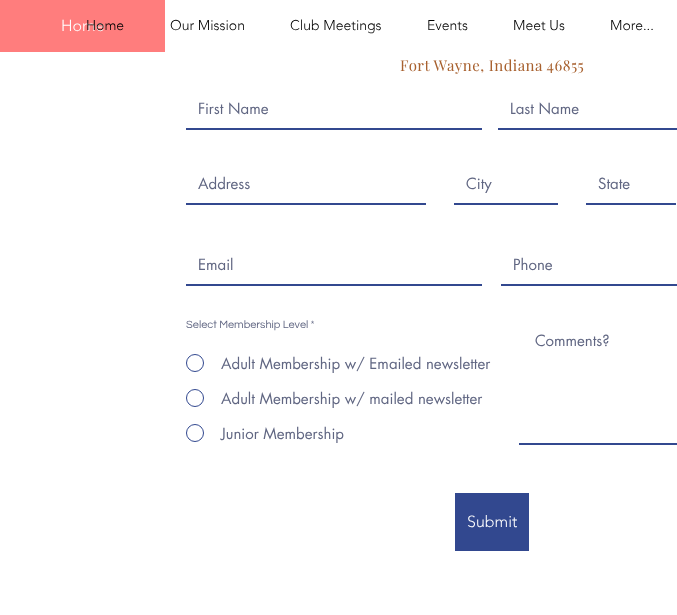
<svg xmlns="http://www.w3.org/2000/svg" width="677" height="615">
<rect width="100%" height="100%" fill="#fff"/>
<rect width="165" height="52" fill="#ff7d7d"/>
<text x="61" y="31" style="font-family:'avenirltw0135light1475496';font-size:16px;font-weight:300;fill:#fff">Home</text>
<text x="86" y="30" style="font-family:'avenirltw0135light1475496';font-size:14px;font-weight:300;fill:#000">Home</text>
<text x="170" y="30" style="font-family:'avenirltw0135light1475496';font-size:14px;font-weight:300;fill:#000">Our Mission</text>
<text x="290" y="30" style="font-family:'avenirltw0135light1475496';font-size:14px;font-weight:300;fill:#000">Club Meetings</text>
<text x="427" y="30" style="font-family:'avenirltw0135light1475496';font-size:14px;font-weight:300;fill:#000">Events</text>
<text x="513" y="30" style="font-family:'avenirltw0135light1475496';font-size:14px;font-weight:300;fill:#000">Meet Us</text>
<text x="610" y="30" style="font-family:'avenirltw0135light1475496';font-size:14px;font-weight:300;fill:#000">More...</text>
<text x="400" y="71" style="font-family:Playfair Display;font-size:15px;letter-spacing:0.45px;fill:#a8612f">Fort Wayne, Indiana 46855</text>
<rect x="186" y="128" width="296" height="2" fill="#32488f"/>
<text x="198" y="114" style="font-family:futura;font-size:15px;fill:#606682">First Name</text>
<rect x="498" y="128" width="179" height="2" fill="#32488f"/>
<text x="510" y="114" style="font-family:futura;font-size:15px;fill:#606682">Last Name</text>
<rect x="186" y="203" width="240" height="2" fill="#32488f"/>
<text x="198" y="189" style="font-family:futura;font-size:15px;fill:#606682">Address</text>
<rect x="454" y="203" width="104" height="2" fill="#32488f"/>
<text x="466" y="189" style="font-family:futura;font-size:15px;fill:#606682">City</text>
<rect x="586" y="203" width="90" height="2" fill="#32488f"/>
<text x="598" y="189" style="font-family:futura;font-size:15px;fill:#606682">State</text>
<rect x="186" y="284" width="296" height="2" fill="#32488f"/>
<text x="198" y="270" style="font-family:futura;font-size:15px;fill:#606682">Email</text>
<rect x="501" y="284" width="176" height="2" fill="#32488f"/>
<text x="513" y="270" style="font-family:futura;font-size:15px;fill:#606682">Phone</text>
<text x="186" y="328" style="font-family:Questrial;font-size:11px;fill:#606682">Select Membership Level *</text>
<circle cx="195" cy="363" r="8.5" fill="none" stroke="#32488f"/>
<text x="221" y="369" style="font-family:futura;font-size:15px;fill:#606682">Adult Membership w/ Emailed newsletter</text>
<circle cx="195" cy="398" r="8.5" fill="none" stroke="#32488f"/>
<text x="221" y="404" style="font-family:futura;font-size:15px;fill:#606682">Adult Membership w/ mailed newsletter</text>
<circle cx="195" cy="433" r="8.5" fill="none" stroke="#32488f"/>
<text x="221" y="439" style="font-family:futura;font-size:15px;fill:#606682">Junior Membership</text>
<rect x="519" y="443" width="158" height="2" fill="#32488f"/>
<text x="535" y="346" style="font-family:futura;font-size:15px;fill:#606682">Comments?</text>
<rect x="455" y="493" width="74" height="58" fill="#32488f"/>
<text x="467" y="527" style="font-family:'avenirltw0135light1475496';font-size:16px;font-weight:300;fill:#fff">Submit</text>
</svg>
